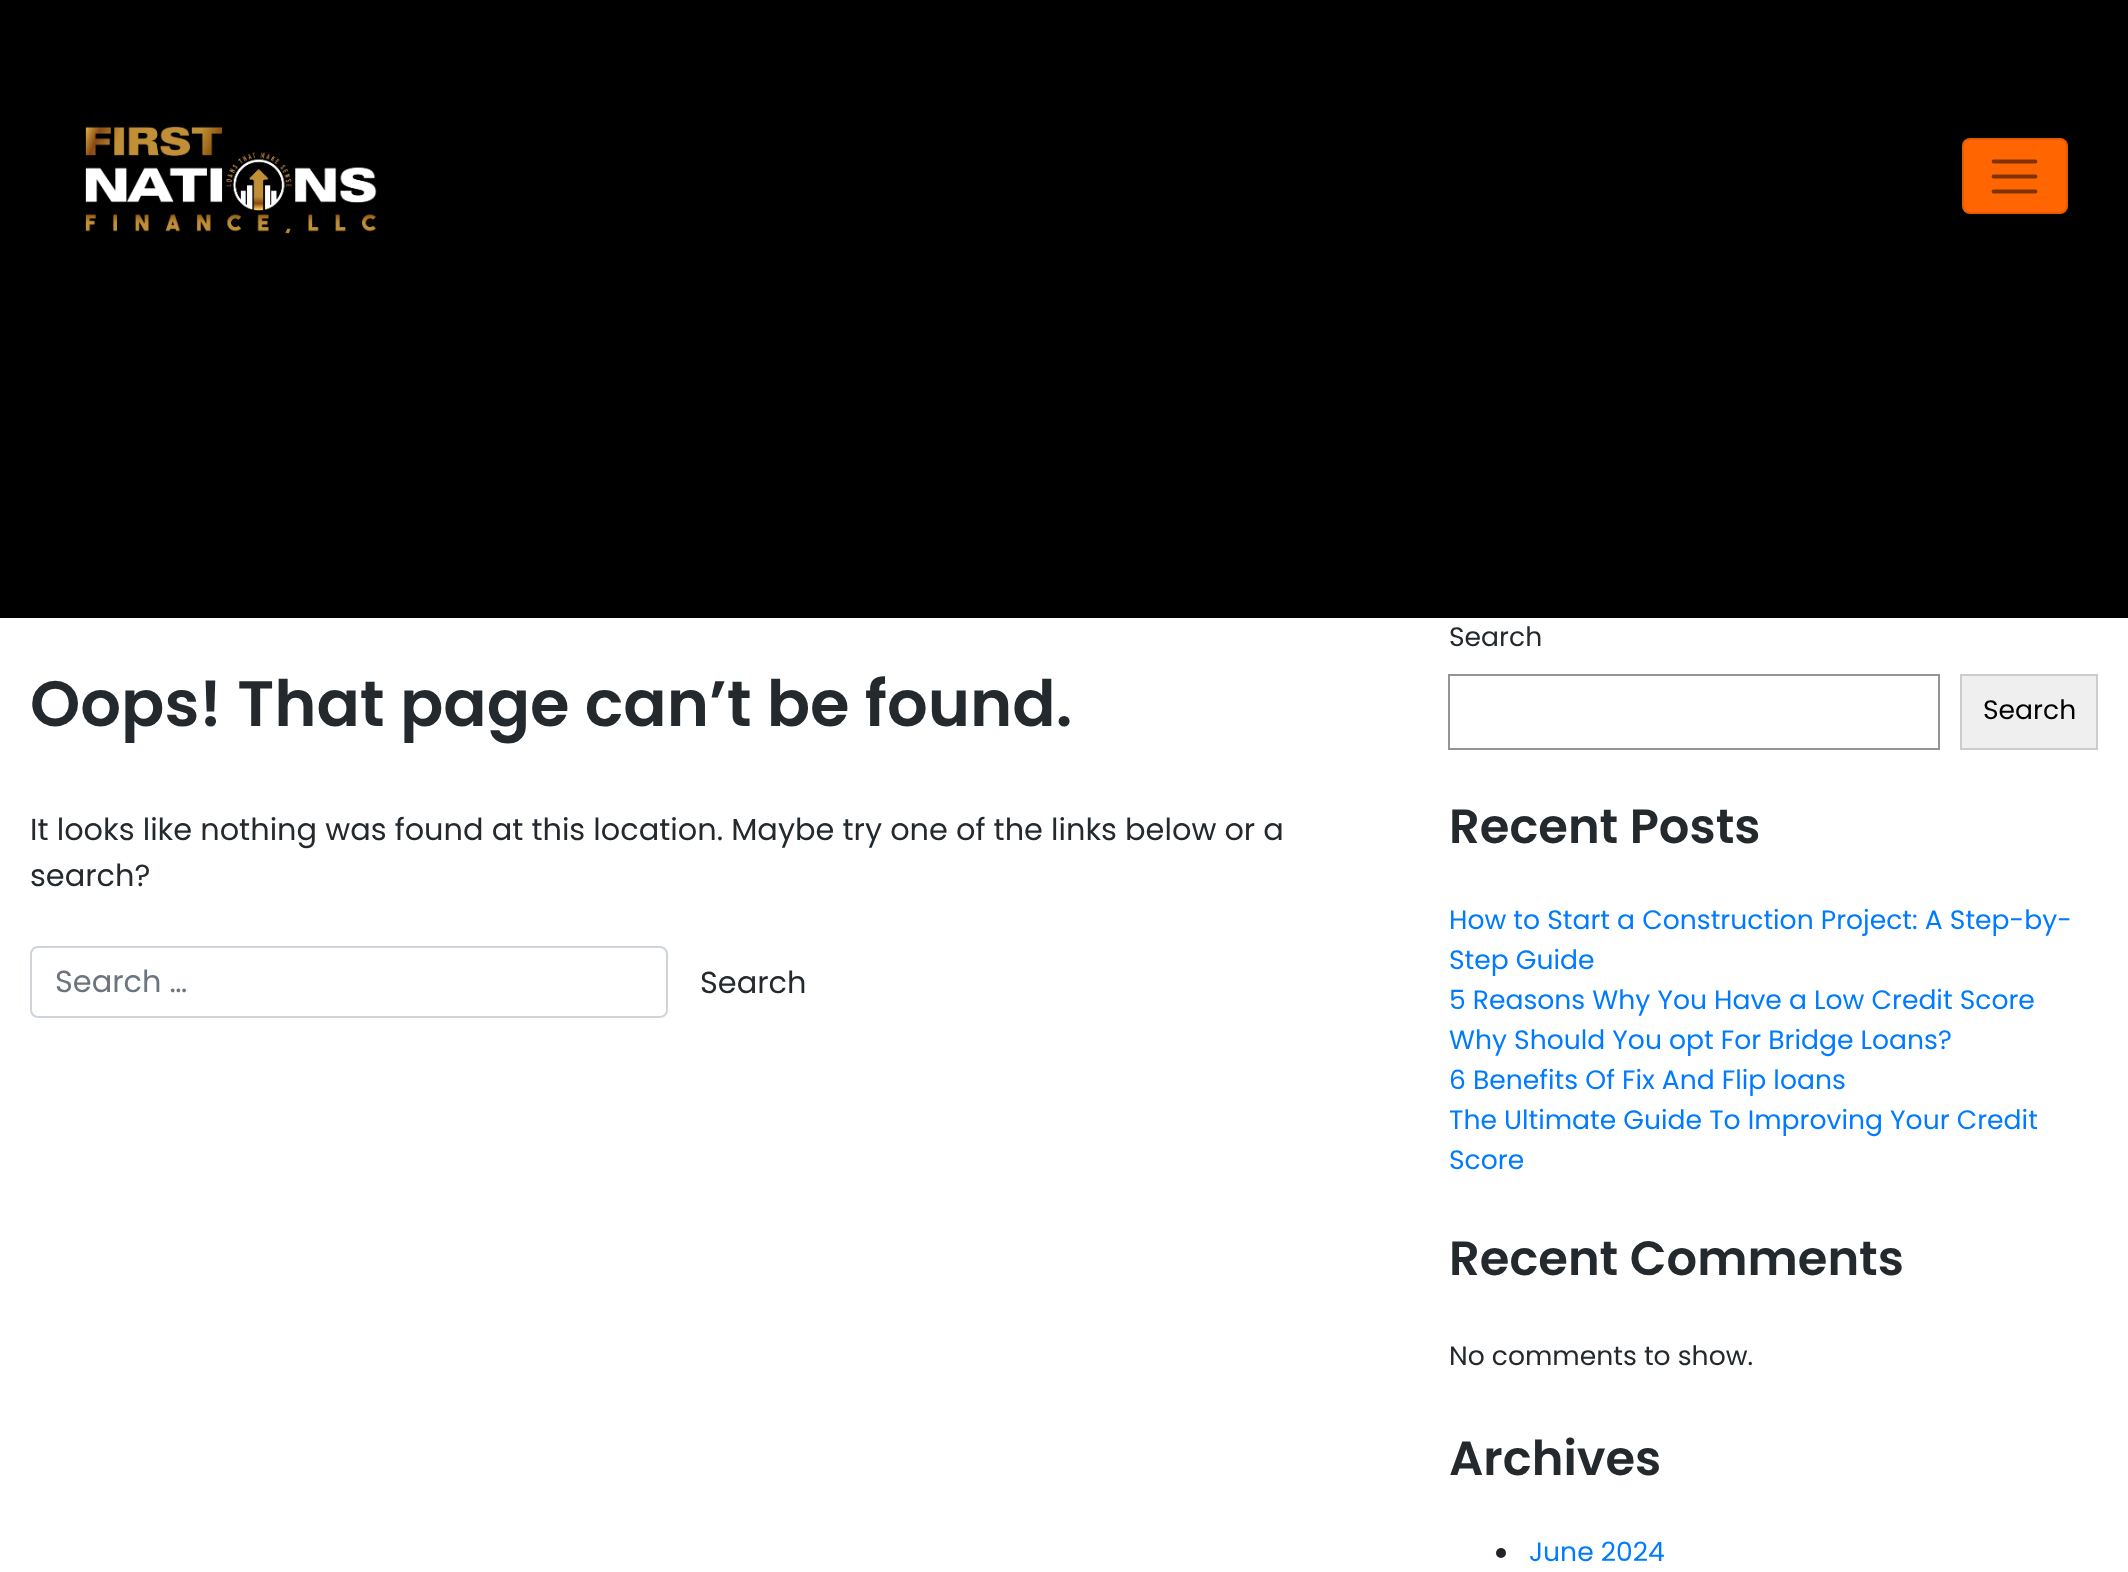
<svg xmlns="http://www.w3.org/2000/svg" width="2128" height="1572">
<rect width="100%" height="100%" fill="#fff"/>
<rect width="2128" height="618" fill="#000"/>
<image x="85" y="126" width="292" height="108" href="media/1.png"/>
<rect x="1962" y="138" width="106" height="76" rx="8" fill="#ff6601"/>
<rect x="1963" y="139" width="104" height="74" rx="7" fill="none" stroke="#0000001a" stroke-width="2"/>
<path d="M1993.5 161.5h42m-42 15h42m-42 15h42" fill="none" stroke="#803301" stroke-width="3.8" stroke-linecap="round"/>
<text x="30" y="726" style="font-family:Poppins;font-size:64px;font-weight:600;fill:#24292e">Oops! That page can’t be found.</text>
<text x="30" y="840" style="font-family:Poppins;font-size:30.4px;fill:#24292e">It looks like nothing was found at this location. Maybe try one of the links below or a</text>
<text x="30" y="886" style="font-family:Poppins;font-size:30.4px;fill:#24292e">search?</text>
<rect x="31" y="947" width="636" height="70" rx="7" fill="none" stroke="#ced4da" stroke-width="2"/>
<text x="55" y="992" style="font-family:Poppins;font-size:30.4px;fill:#6c757d">Search …</text>
<text x="700" y="993" style="font-family:Poppins;font-size:30.4px;fill:#24292e">Search</text>
<text x="1449" y="646" style="font-family:Poppins;font-size:26.6px;fill:#24292e">Search</text>
<rect x="1449" y="675" width="490" height="74" fill="none" stroke="#949494" stroke-width="2"/>
<rect x="1961" y="675" width="136" height="74" fill="#efefef" stroke="#ccc" stroke-width="2"/>
<text x="1983" y="719" style="font-family:Poppins;font-size:26.6px;fill:#000">Search</text>
<text x="1449" y="843" style="font-family:Poppins;font-size:48px;font-weight:600;fill:#24292e">Recent Posts</text>
<text x="1449" y="929" style="font-family:Poppins;font-size:26.6px;fill:#007bff">How to Start a Construction Project: A Step-by-</text>
<text x="1449" y="969" style="font-family:Poppins;font-size:26.6px;fill:#007bff">Step Guide</text>
<text x="1449" y="1009" style="font-family:Poppins;font-size:26.6px;fill:#007bff">5 Reasons Why You Have a Low Credit Score</text>
<text x="1449" y="1049" style="font-family:Poppins;font-size:26.6px;fill:#007bff">Why Should You opt For Bridge Loans?</text>
<text x="1449" y="1089" style="font-family:Poppins;font-size:26.6px;fill:#007bff">6 Benefits Of Fix And Flip loans</text>
<text x="1449" y="1129" style="font-family:Poppins;font-size:26.6px;fill:#007bff">The Ultimate Guide To Improving Your Credit</text>
<text x="1449" y="1169" style="font-family:Poppins;font-size:26.6px;fill:#007bff">Score</text>
<text x="1449" y="1275" style="font-family:Poppins;font-size:48px;font-weight:600;fill:#24292e">Recent Comments</text>
<text x="1449" y="1365" style="font-family:Poppins;font-size:26.6px;fill:#24292e">No comments to show.</text>
<text x="1449" y="1475" style="font-family:Poppins;font-size:48px;font-weight:600;fill:#24292e">Archives</text>
<circle cx="1501" cy="1553" r="5" fill="#212529"/>
<text x="1529" y="1561" style="font-family:Poppins;font-size:26.6px;fill:#007bff">June 2024</text>
</svg>
